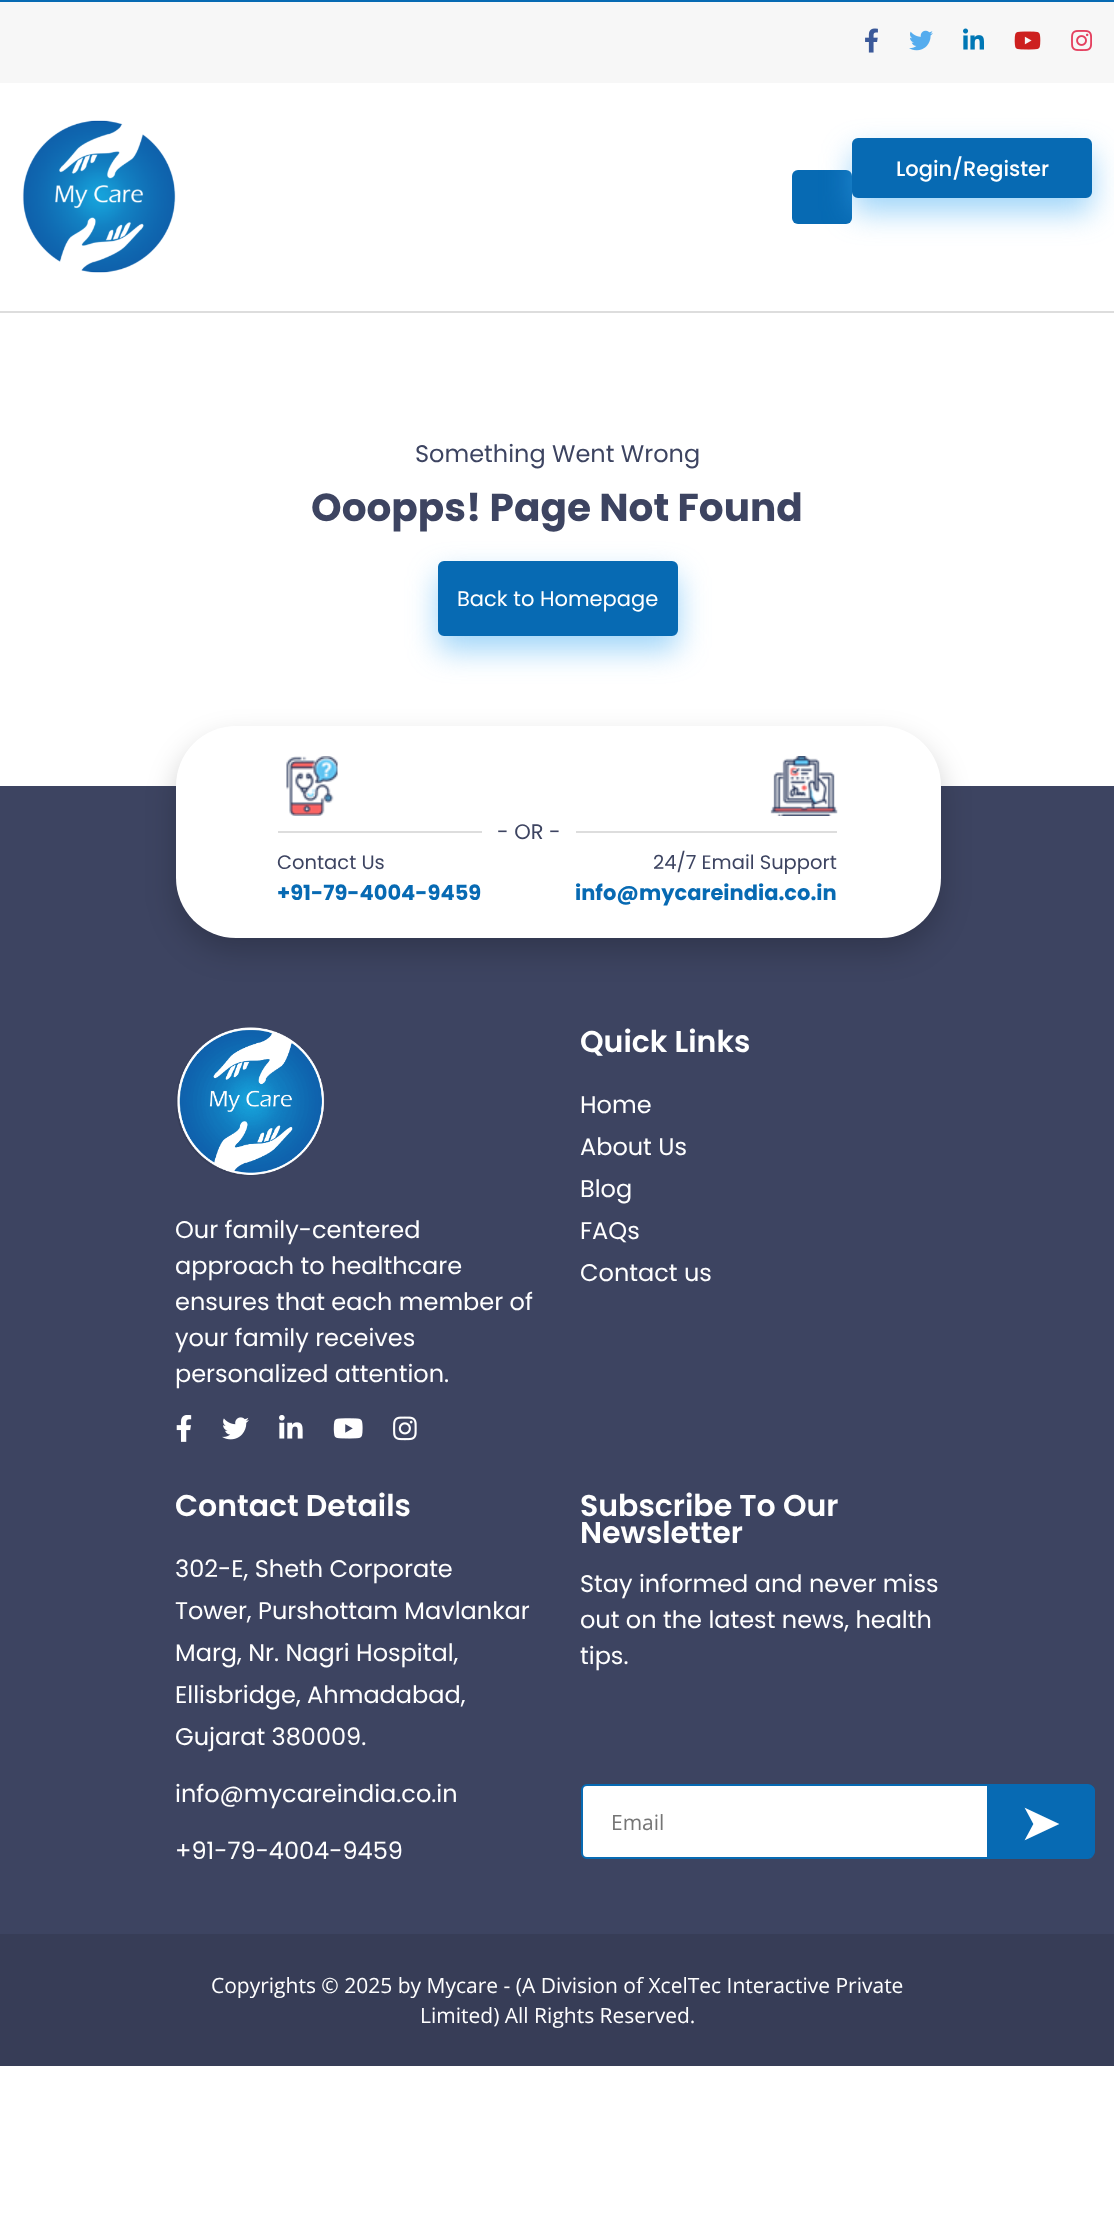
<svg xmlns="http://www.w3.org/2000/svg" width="1114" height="2220">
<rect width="100%" height="100%" fill="#fff"/>
<rect y="2" width="1114" height="81" fill="#f7f7f7"/>
<rect width="1114" height="2" fill="#076ab3"/>
<image x="865" y="28" width="13" height="25" href="media/1.png"/>
<image x="909" y="30" width="24" height="21" href="media/2.png"/>
<image x="963" y="28" width="21" height="22" href="media/3.png"/>
<image x="1014" y="31" width="27" height="19" href="media/4.png"/>
<image x="1071" y="30" width="21" height="21" href="media/5.png"/>
<rect y="311" width="1114" height="2" fill="#ddd"/>
<image x="22" y="120" width="154" height="153" href="media/6.png"/>
<rect x="792" y="170" width="60" height="54" rx="6" fill="#076ab3"/>
<rect x="852" y="152" width="240" height="60" rx="6" fill="#3fabf380" filter="blur(15px)"/>
<rect x="853.5" y="139.5" width="237" height="57" rx="4.5" fill="#076ab3" stroke="#076ab3" stroke-width="3"/>
<text x="896" y="176" style="font-family:Poppins;font-size:21px;font-weight:500;fill:#fff">Login/Register</text>
<text x="415" y="462" style="font-family:Poppins;font-size:24px;fill:#3d4461">Something Went Wrong</text>
<text x="311" y="521" style="font-family:Poppins;font-size:39px;font-weight:bold;fill:#3d4461">Ooopps! Page Not Found</text>
<rect x="438" y="575" width="240" height="75" rx="6" fill="#3fabf380" filter="blur(15px)"/>
<rect x="439.5" y="562.5" width="237" height="72" rx="4.5" fill="#076ab3" stroke="#076ab3" stroke-width="3"/>
<text x="457" y="606" style="font-family:Poppins;font-size:21px;fill:#fff">Back to Homepage</text>
<rect y="786" width="1114" height="1148" fill="#3d4461"/>
<rect x="176" y="740" width="765" height="211" rx="60" fill="#00000033" filter="blur(15px)"/>
<rect x="176" y="726" width="765" height="212" rx="60" fill="#fff"/>
<text x="497" y="839" style="font-family:Poppins;font-size:21px;fill:#3d4461">- OR -</text>
<image x="286" y="756" width="52" height="60" href="media/7.png"/>
<rect x="278" y="831" width="204" height="2" fill="#ddd"/>
<text x="277" y="869" style="font-family:Poppins;font-size:19.5px;fill:#3d4461">Contact Us</text>
<text x="277" y="900" style="font-family:Poppins;font-size:21px;font-weight:bold;fill:#076ab3">+91-79-4004-9459</text>
<image x="770" y="756" width="68" height="60" href="media/8.png"/>
<rect x="576" y="831" width="261" height="2" fill="#ddd"/>
<text x="653" y="869" style="font-family:Poppins;font-size:19.5px;fill:#3d4461">24/7 Email Support</text>
<text x="575" y="900" style="font-family:Poppins;font-size:21px;font-weight:bold;fill:#076ab3">info@mycareindia.co.in</text>
<text x="580" y="1052" style="font-family:Poppins;font-size:30px;font-weight:600;fill:#fff">Quick Links</text>
<text x="580" y="1113" style="font-family:Poppins;font-size:24px;fill:#fff">Home</text>
<text x="580" y="1155" style="font-family:Poppins;font-size:24px;fill:#fff">About Us</text>
<text x="580" y="1197" style="font-family:Poppins;font-size:24px;fill:#fff">Blog</text>
<text x="580" y="1239" style="font-family:Poppins;font-size:24px;fill:#fff">FAQs</text>
<text x="580" y="1281" style="font-family:Poppins;font-size:24px;fill:#fff">Contact us</text>
<image x="176" y="1027" width="149" height="149" href="media/9.png"/>
<text x="175" y="1238" style="font-family:Poppins;font-size:24px;fill:#fff">Our family-centered</text>
<text x="175" y="1274" style="font-family:Poppins;font-size:24px;fill:#fff">approach to healthcare</text>
<text x="175" y="1310" style="font-family:Poppins;font-size:24px;fill:#fff">ensures that each member of</text>
<text x="175" y="1346" style="font-family:Poppins;font-size:24px;fill:#fff">your family receives</text>
<text x="175" y="1382" style="font-family:Poppins;font-size:24px;fill:#fff">personalized attention.</text>
<image x="176" y="1415" width="16" height="27" href="media/10.png"/>
<image x="222" y="1417" width="27" height="23" href="media/11.png"/>
<image x="279" y="1415" width="24" height="24" href="media/12.png"/>
<image x="333" y="1418" width="30" height="21" href="media/13.png"/>
<image x="393" y="1416" width="24" height="25" href="media/14.png"/>
<text x="175" y="1516" style="font-family:Poppins;font-size:30px;font-weight:600;fill:#fff">Contact Details</text>
<text x="175" y="1577" style="font-family:Poppins;font-size:24px;fill:#fff">302-E, Sheth Corporate</text>
<text x="175" y="1619" style="font-family:Poppins;font-size:24px;fill:#fff">Tower, Purshottam Mavlankar</text>
<text x="175" y="1661" style="font-family:Poppins;font-size:24px;fill:#fff">Marg, Nr. Nagri Hospital,</text>
<text x="175" y="1703" style="font-family:Poppins;font-size:24px;fill:#fff">Ellisbridge, Ahmadabad,</text>
<text x="175" y="1745" style="font-family:Poppins;font-size:24px;fill:#fff">Gujarat 380009.</text>
<text x="175" y="1802" style="font-family:Poppins;font-size:24px;fill:#fff">info@mycareindia.co.in</text>
<text x="175" y="1859" style="font-family:Poppins;font-size:24px;fill:#fff">+91-79-4004-9459</text>
<text x="580" y="1516" style="font-family:Poppins;font-size:30px;font-weight:600;fill:#fff">Subscribe To Our</text>
<text x="580" y="1543" style="font-family:Poppins;font-size:30px;font-weight:600;fill:#fff">Newsletter</text>
<text x="580" y="1592" style="font-family:Poppins;font-size:24px;fill:#fff">Stay informed and never miss</text>
<text x="580" y="1628" style="font-family:Poppins;font-size:24px;fill:#fff">out on the latest news, health</text>
<text x="580" y="1664" style="font-family:Poppins;font-size:24px;fill:#fff">tips.</text>
<rect x="582" y="1785" width="511" height="73" rx="5" fill="#fff" stroke="#076ab3" stroke-width="2"/>
<text x="611" y="1830" style="font-family:Open Sans;font-size:21px;fill:#757575">Email</text>
<path d="M987 1785h102c3.5 0 6 2.5 6 6v60c0 3.5-2.5 6-6 6h-102z" fill="#076ab3"/>
<text x="1019" y="1840" style="font-family:DejaVu Sans;font-size:51px;fill:#fff">➤</text>
<rect y="1934" width="1114" height="132" fill="#373d57"/>
<text x="211" y="1993" style="font-family:Open Sans;font-size:21px;fill:#fff">Copyrights © 2025 by Mycare - (A Division of XcelTec Interactive Private</text>
<text x="420" y="2023" style="font-family:Open Sans;font-size:21px;fill:#fff">Limited) All Rights Reserved.</text>
</svg>
